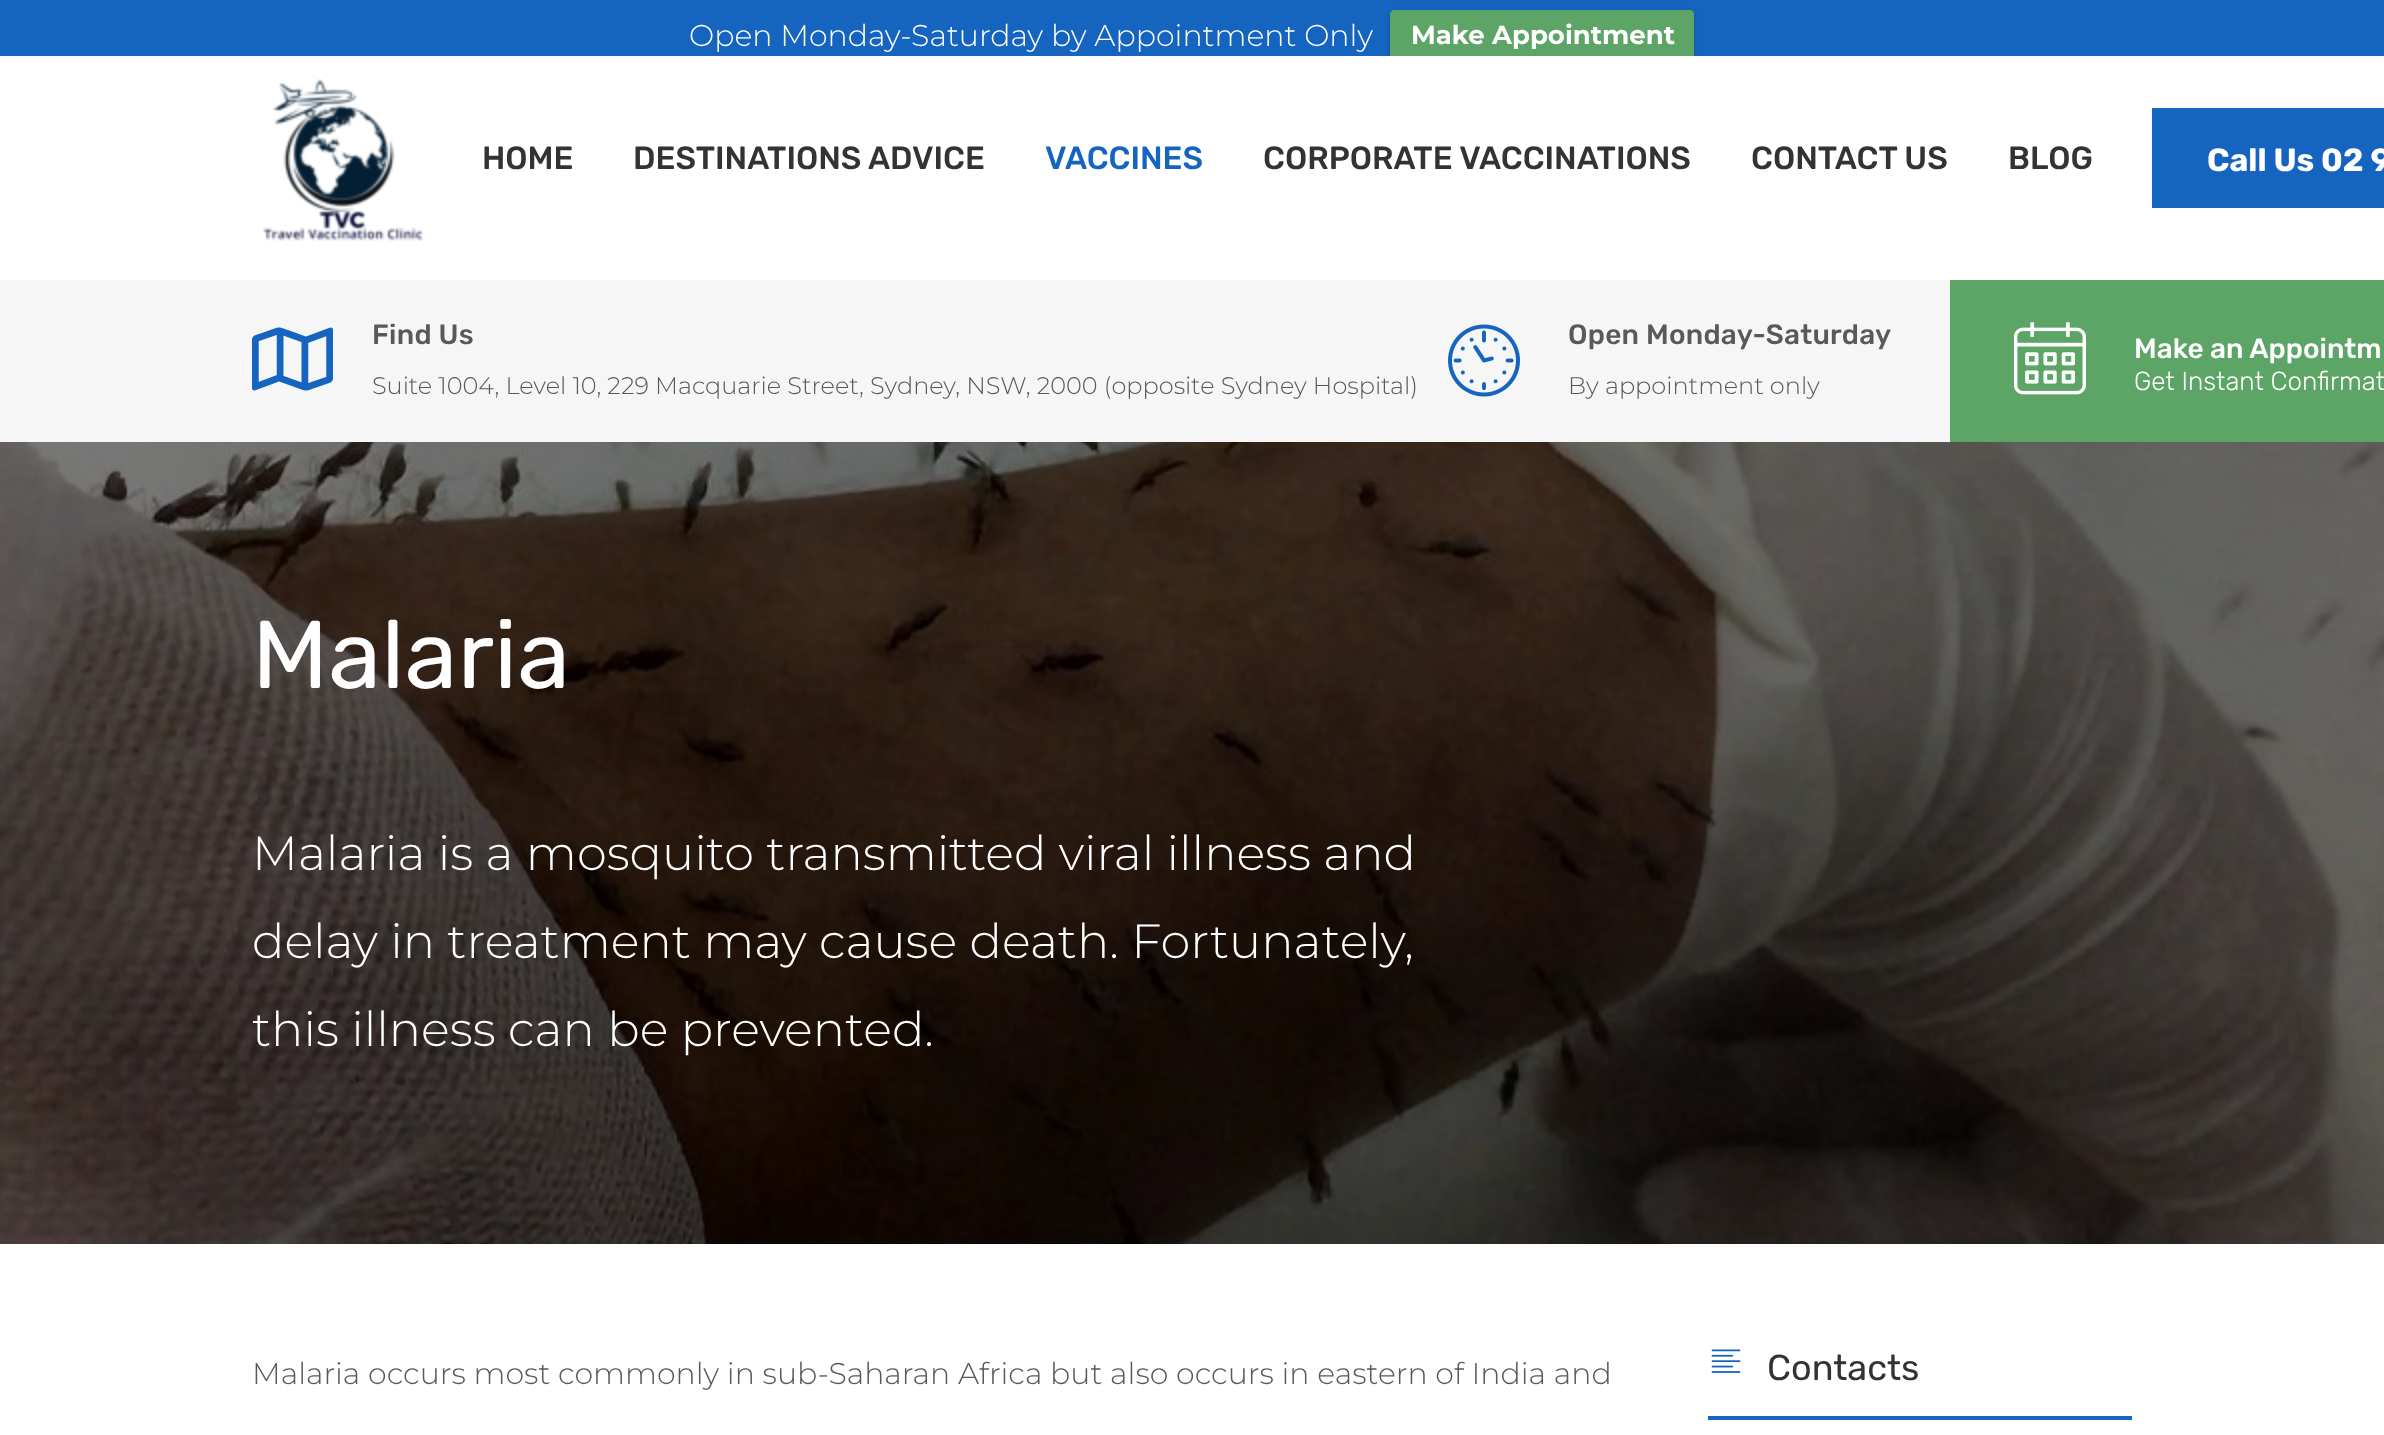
<svg xmlns="http://www.w3.org/2000/svg" width="2384" height="1435">
<defs>
<clipPath id="clip1"><rect x="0" y="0" width="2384" height="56"/></clipPath>
</defs>
<rect width="100%" height="100%" fill="#fff"/>
<rect width="2384" height="56" fill="#1565c0"/>
<text x="689" y="46" style="font-family:Montserrat;font-size:30px;font-weight:300;fill:#fff">Open Monday-Saturday by Appointment Only</text>
<g clip-path="url(#clip1)">
<rect x="1390" y="12" width="304" height="50" rx="4" fill="#00000033" filter="blur(2px)"/>
</g>
<path d="M1394 10h296c2 0 4 2 4 4v42h-304v-42c0-2 2-4 4-4z" fill="#5ca566"/>
<text x="1411" y="44" style="font-family:Montserrat;font-size:26px;font-weight:bold;fill:#fff">Make Appointment</text>
<image x="263" y="79" width="160" height="162" href="media/1.png"/>
<text x="482" y="169" style="font-family:Rubik;font-size:32px;font-weight:500;fill:#333">HOME</text>
<text x="633" y="169" style="font-family:Rubik;font-size:32px;font-weight:500;fill:#333">DESTINATIONS ADVICE</text>
<text x="1045" y="169" style="font-family:Rubik;font-size:32px;font-weight:500;fill:#1565c0">VACCINES</text>
<text x="1263" y="169" style="font-family:Rubik;font-size:32px;font-weight:500;fill:#333">CORPORATE VACCINATIONS</text>
<text x="1751" y="169" style="font-family:Rubik;font-size:32px;font-weight:500;fill:#333">CONTACT US</text>
<text x="2008" y="169" style="font-family:Rubik;font-size:32px;font-weight:500;fill:#333">BLOG</text>
<rect x="2152" y="108" width="232" height="100" fill="#1565c0"/>
<text x="2207" y="171" style="font-family:Rubik;font-size:32px;font-weight:bold;fill:#fff">Call Us 02 9</text>
<rect y="280" width="1950" height="162" fill="#f6f6f6"/>
<image x="252" y="327" width="81" height="64" href="media/2.png"/>
<text x="372" y="344" style="font-family:Rubik;font-size:28px;font-weight:500;letter-spacing:0.25px;fill:#595959">Find Us</text>
<text x="372" y="394" style="font-family:Montserrat;font-size:24px;font-weight:300;fill:#595959">Suite 1004, Level 10, 229 Macquarie Street, Sydney, NSW, 2000 (opposite Sydney Hospital)</text>
<image x="1448" y="324" width="72" height="73" href="media/3.png"/>
<text x="1568" y="344" style="font-family:Rubik;font-size:28px;font-weight:500;letter-spacing:0.25px;fill:#595959">Open Monday-Saturday</text>
<text x="1568" y="394" style="font-family:Montserrat;font-size:24px;font-weight:300;fill:#595959">By appointment only</text>
<rect x="1950" y="280" width="434" height="162" fill="#5ca566"/>
<image x="2014" y="322" width="72" height="73" href="media/4.png"/>
<text x="2134" y="358" style="font-family:Rubik;font-size:28px;font-weight:500;fill:#fff">Make an Appointm</text>
<text x="2134" y="390" style="font-family:Rubik;font-size:26px;font-weight:300;fill:#fff">Get Instant Confirmat</text>
<image x="0" y="442" width="2384" height="802" href="media/5.png"/>
<text x="252" y="688" style="font-family:Rubik;font-size:96px;fill:#fff">Malaria</text>
<text x="252" y="870" style="font-family:Montserrat;font-size:48px;font-weight:300;fill:#fff">Malaria is a mosquito transmitted viral illness and</text>
<text x="252" y="958" style="font-family:Montserrat;font-size:48px;font-weight:300;fill:#fff">delay in treatment may cause death. Fortunately,</text>
<text x="252" y="1046" style="font-family:Montserrat;font-size:48px;font-weight:300;fill:#fff">this illness can be prevented.</text>
<text x="252" y="1384" style="font-family:Montserrat;font-size:30px;font-weight:300;fill:#595959">Malaria occurs most commonly in sub-Saharan Africa but also occurs in eastern of India and</text>
<rect x="1708" y="1416" width="424" height="4" fill="#1565c0"/>
<image x="1711" y="1349" width="30" height="24" href="media/6.png"/>
<text x="1767" y="1380" style="font-family:Rubik;font-size:36px;fill:#333">Contacts</text>
</svg>
